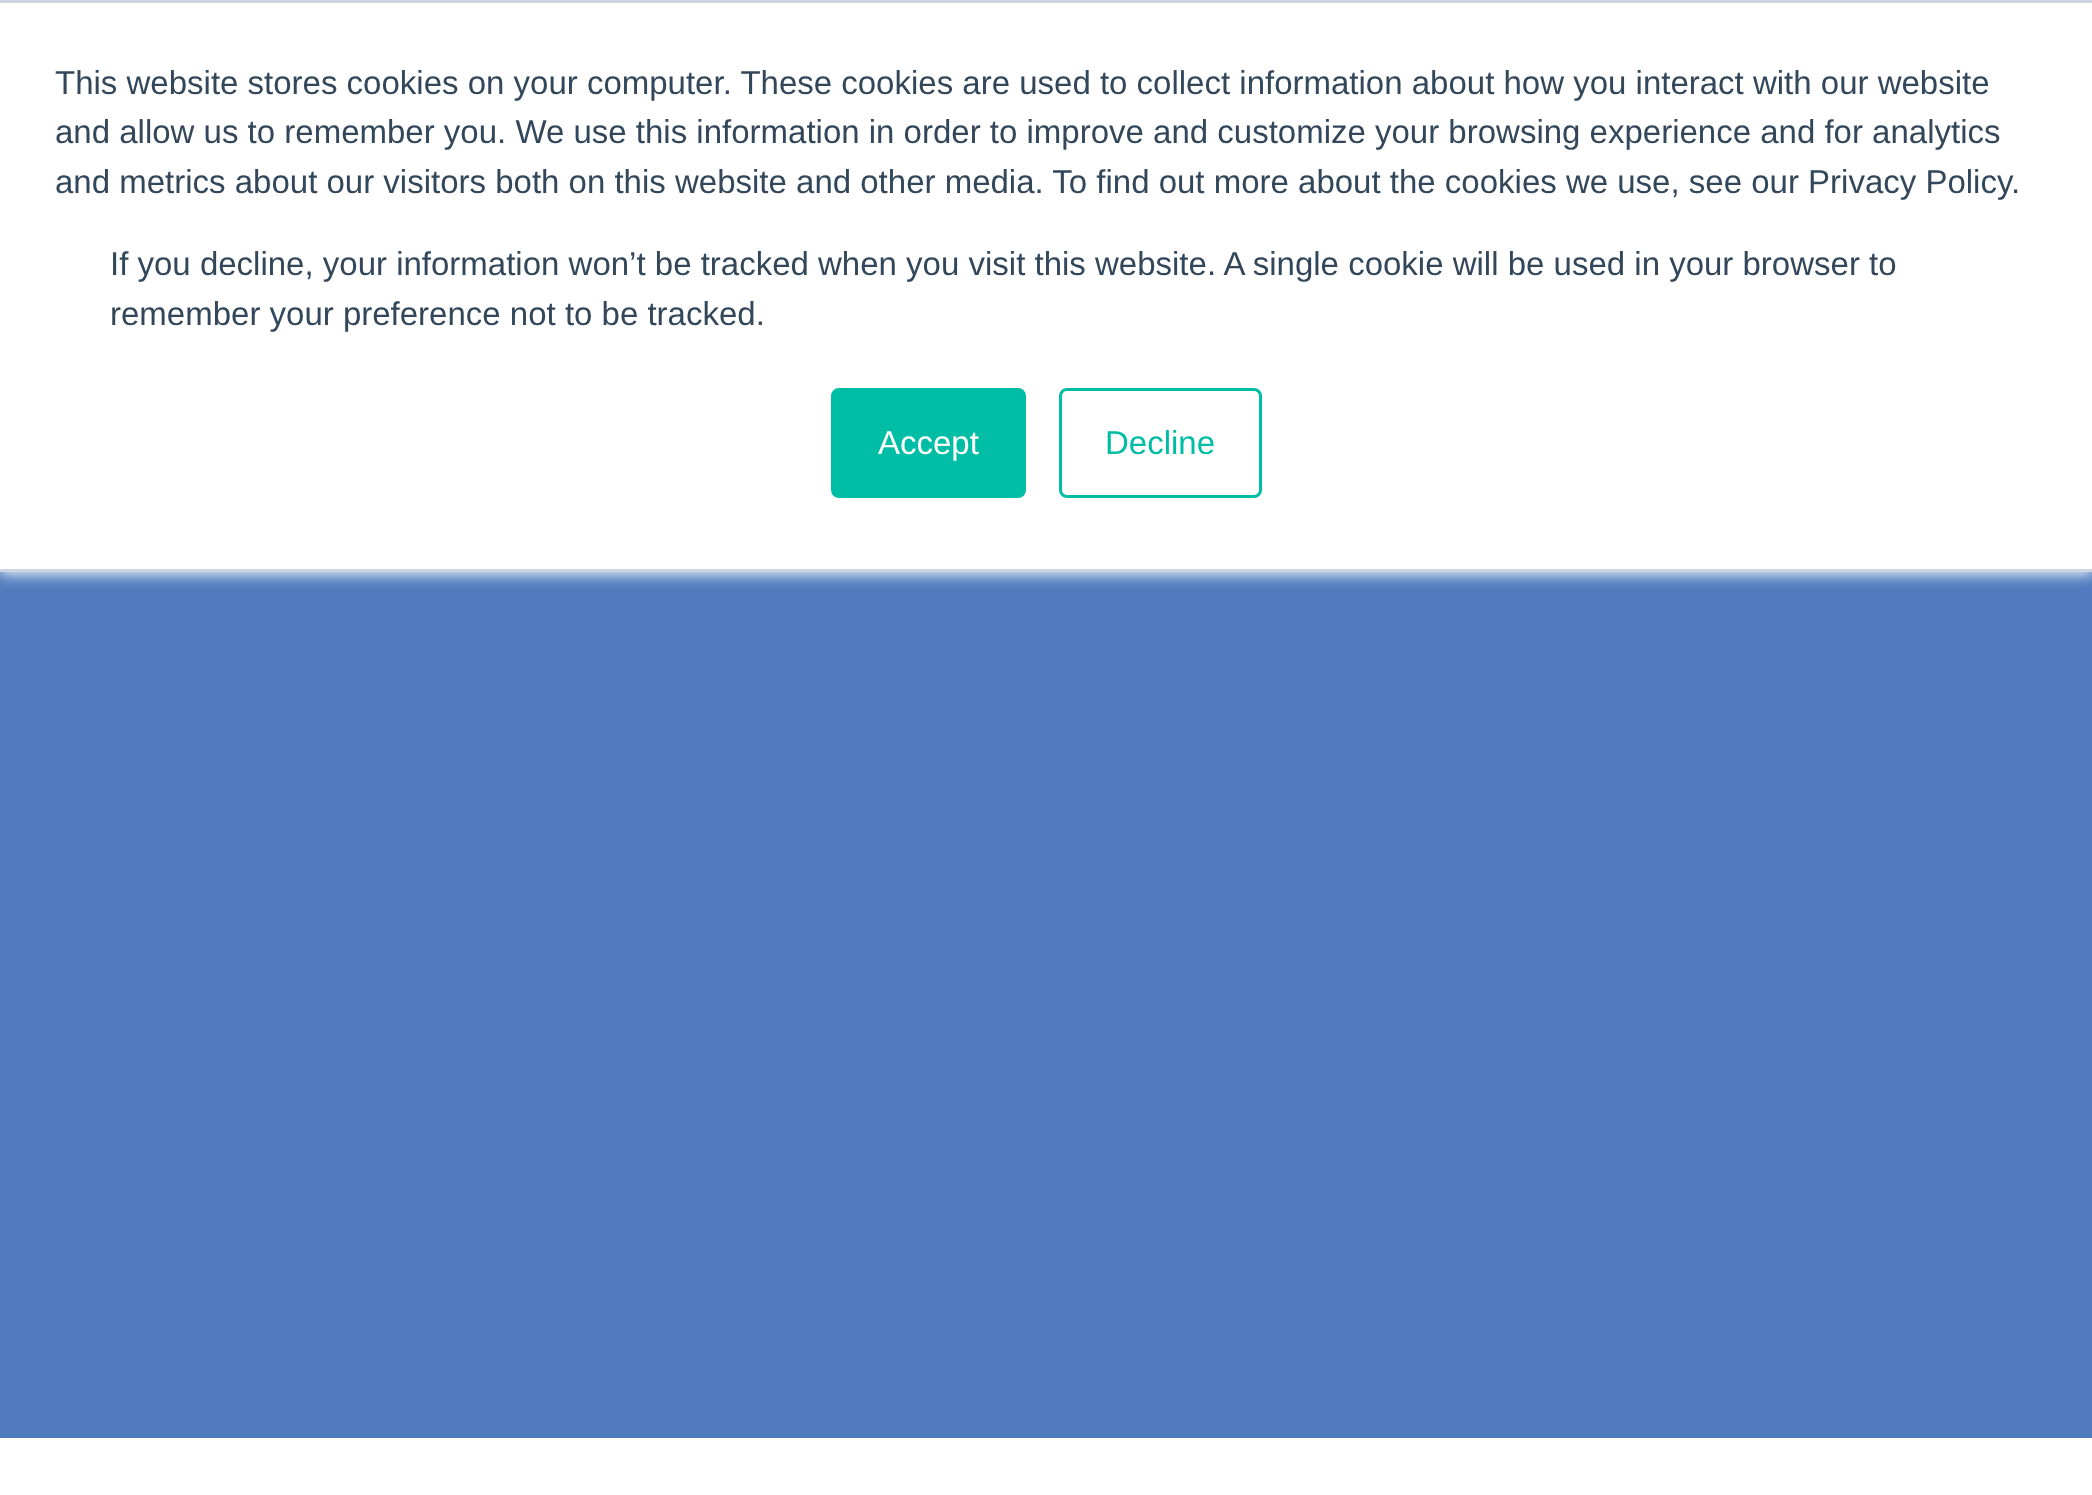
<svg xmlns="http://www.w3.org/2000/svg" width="2092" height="1495">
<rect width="100%" height="100%" fill="#fff"/>
<rect y="572" width="2092" height="866" fill="#507cbf"/>
<rect y="3" width="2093" height="572" fill="#eaf0f6" filter="blur(7px)"/>
<rect y="3" width="2092" height="566" fill="#fff"/>
<rect width="2092" height="3" fill="#cbd6e2"/>
<rect y="569" width="2092" height="3" fill="#cbd6e2"/>
<text x="55" y="94" style="font-family:Liberation Sans;font-size:33px;fill:#33475b">This website stores cookies on your computer. These cookies are used to collect information about how you interact with our website</text>
<text x="55" y="143" style="font-family:Liberation Sans;font-size:33px;fill:#33475b">and allow us to remember you. We use this information in order to improve and customize your browsing experience and for analytics</text>
<text x="55" y="193" style="font-family:Liberation Sans;font-size:33px;fill:#33475b">and metrics about our visitors both on this website and other media. To find out more about the cookies we use, see our Privacy Policy.</text>
<text x="110" y="275" style="font-family:Liberation Sans;font-size:33px;fill:#33475b">If you decline, your information won’t be tracked when you visit this website. A single cookie will be used in your browser to</text>
<text x="110" y="325" style="font-family:Liberation Sans;font-size:33px;fill:#33475b">remember your preference not to be tracked.</text>
<rect x="832.5" y="389.5" width="192" height="107" rx="6.5" fill="#00bda5" stroke="#00bda5" stroke-width="3"/>
<text x="878" y="454" style="font-family:Liberation Sans;font-size:33px;fill:#fff">Accept</text>
<rect x="1060.5" y="389.5" width="200" height="107" rx="6.5" fill="none" stroke="#00bda5" stroke-width="3"/>
<text x="1105" y="454" style="font-family:Liberation Sans;font-size:33px;fill:#00bda5">Decline</text>
</svg>
